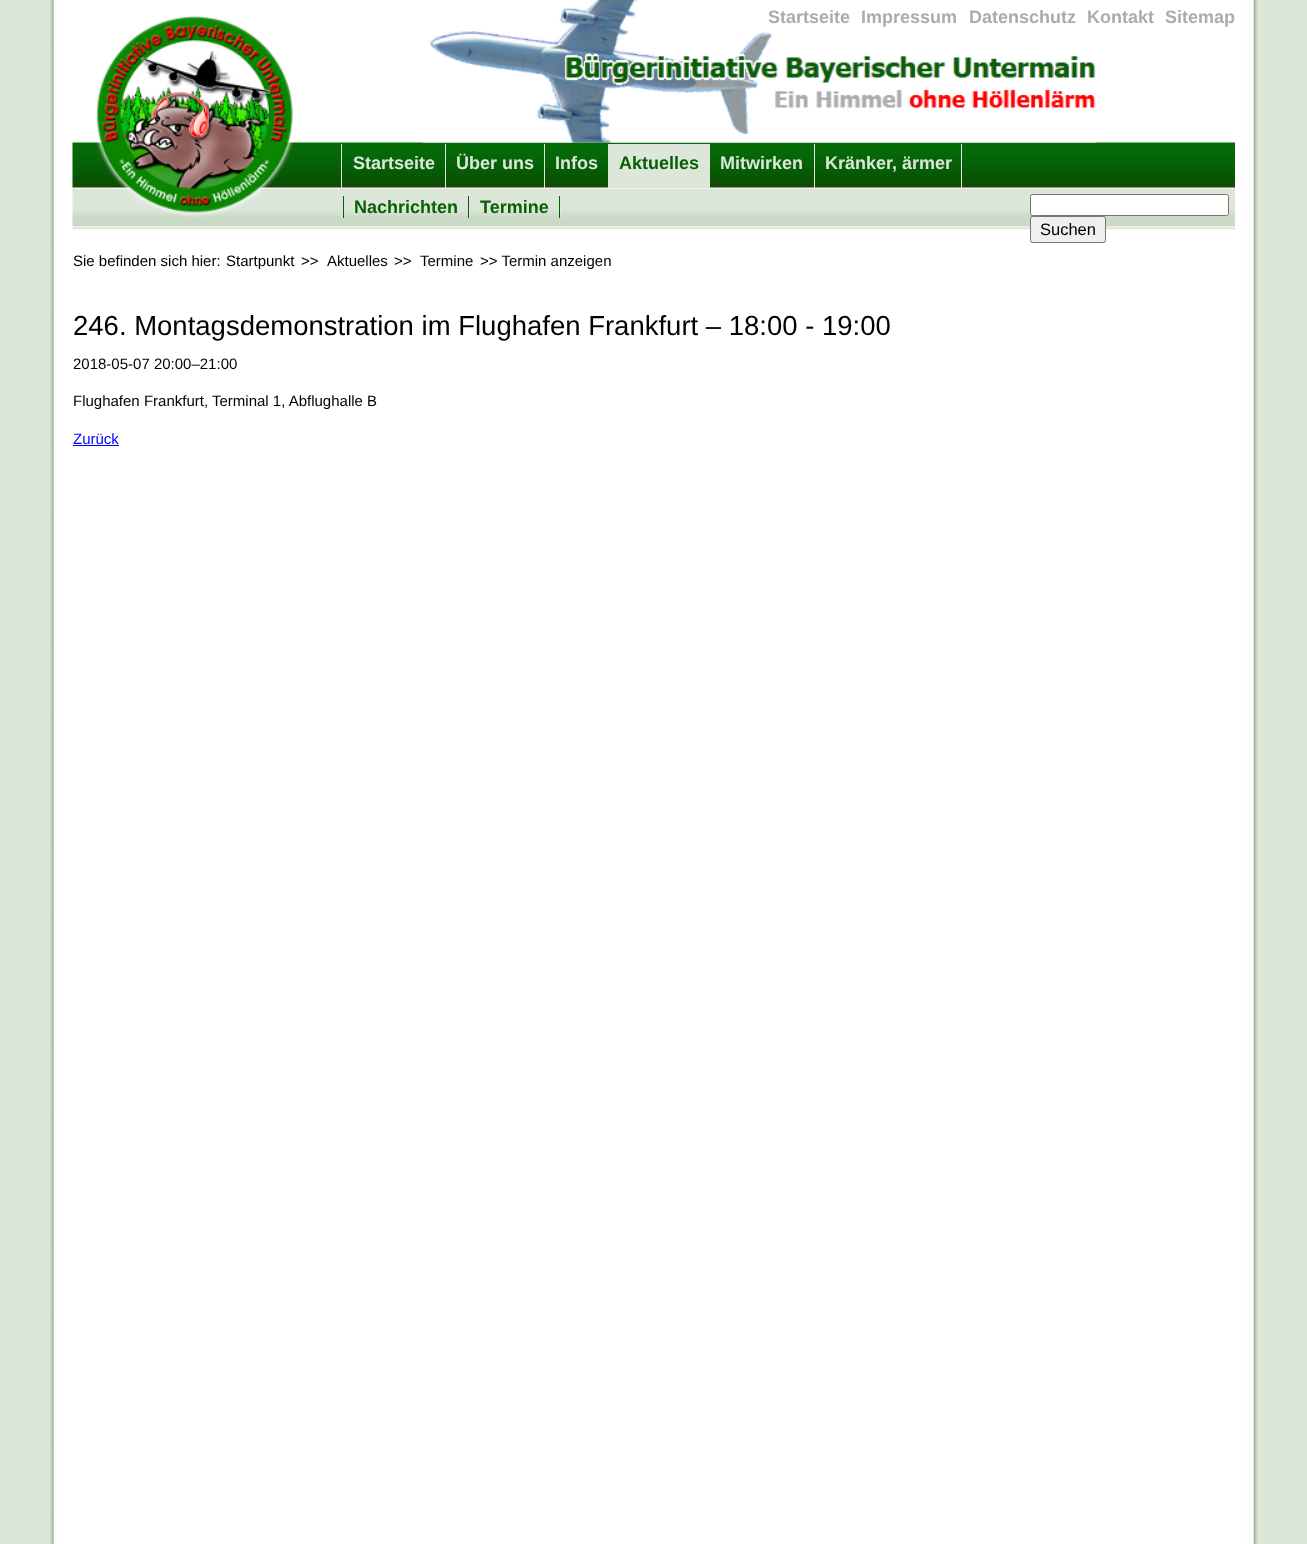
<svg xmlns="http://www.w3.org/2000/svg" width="1307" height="1544">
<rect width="100%" height="100%" fill="#dce7d9"/>
<image x="49" y="0" width="1209" height="1544" href="media/1.png"/>
<image x="72" y="140" width="1163" height="90" href="media/2.png"/>
<image x="422" y="0" width="675" height="143" href="media/3.png"/>
<image x="96" y="16" width="198" height="201" href="media/4.png"/>
<rect x="445" y="144" width="1" height="44" fill="#dce7d9"/>
<rect x="341" y="144" width="1" height="74" fill="#dce7d9"/>
<text x="353" y="169" style="font-family:Liberation Sans;font-size:18px;font-weight:bold;fill:#dce7d9">Startseite</text>
<rect x="544" y="144" width="1" height="44" fill="#dce7d9"/>
<text x="456" y="169" style="font-family:Liberation Sans;font-size:18px;font-weight:bold;fill:#dce7d9">Über uns</text>
<rect x="609" y="144" width="101" height="44" fill="#dce7d9"/>
<text x="619" y="169" style="font-family:Liberation Sans;font-size:18px;font-weight:bold;fill:#095f06">Aktuelles</text>
<rect x="469" y="188" width="1" height="30" fill="#dce7d9"/>
<rect x="468" y="196" width="1" height="22" fill="#095f06"/>
<rect x="343" y="196" width="1" height="22" fill="#095f06"/>
<text x="354" y="213" style="font-family:Liberation Sans;font-size:18px;font-weight:bold;fill:#095f06">Nachrichten</text>
<rect x="560" y="188" width="1" height="30" fill="#dce7d9"/>
<rect x="559" y="196" width="1" height="22" fill="#095f06"/>
<text x="480" y="213" style="font-family:Liberation Sans;font-size:18px;font-weight:bold;fill:#095f06">Termine</text>
<rect x="608" y="144" width="1" height="44" fill="#dce7d9"/>
<text x="555" y="169" style="font-family:Liberation Sans;font-size:18px;font-weight:bold;fill:#dce7d9">Infos</text>
<rect x="814" y="144" width="1" height="44" fill="#dce7d9"/>
<text x="720" y="169" style="font-family:Liberation Sans;font-size:18px;font-weight:bold;fill:#dce7d9">Mitwirken</text>
<rect x="961" y="144" width="1" height="44" fill="#dce7d9"/>
<text x="825" y="169" style="font-family:Liberation Sans;font-size:18px;font-weight:bold;fill:#dce7d9">Kränker, ärmer</text>
<text x="768" y="23" style="font-family:Liberation Sans;font-size:18px;font-weight:bold;fill:#acacac">Startseite</text>
<text x="861" y="23" style="font-family:Liberation Sans;font-size:18px;font-weight:bold;fill:#acacac">Impressum</text>
<text x="969" y="23" style="font-family:Liberation Sans;font-size:18px;font-weight:bold;fill:#acacac">Datenschutz</text>
<text x="1087" y="23" style="font-family:Liberation Sans;font-size:18px;font-weight:bold;fill:#acacac">Kontakt</text>
<text x="1165" y="23" style="font-family:Liberation Sans;font-size:18px;font-weight:bold;fill:#acacac">Sitemap</text>
<rect x="1030.5" y="194.5" width="198" height="21" rx="2" fill="#fff" stroke="#767676"/>
<rect x="1030.5" y="216.5" width="75" height="26" rx="2" fill="#efefef" stroke="#767676"/>
<text x="1040" y="235" style="font-family:Liberation Sans;font-size:16.5px;fill:#000">Suchen</text>
<text x="73" y="266" style="font-family:Liberation Sans;font-size:15px;fill:#000">Sie befinden sich hier:</text>
<text x="226" y="266" style="font-family:Liberation Sans;font-size:15px;fill:#000">Startpunkt</text>
<text x="301" y="266" style="font-family:Liberation Sans;font-size:15px;fill:#000">&gt;&gt;</text>
<text x="327" y="266" style="font-family:Liberation Sans;font-size:15px;fill:#000">Aktuelles</text>
<text x="394" y="266" style="font-family:Liberation Sans;font-size:15px;fill:#000">&gt;&gt;</text>
<text x="420" y="266" style="font-family:Liberation Sans;font-size:15px;fill:#000">Termine</text>
<text x="480" y="266" style="font-family:Liberation Sans;font-size:15px;fill:#000">&gt;&gt; Termin anzeigen</text>
<text x="73" y="335" style="font-family:Liberation Sans;font-size:27.5px;fill:#000">246. Montagsdemonstration im Flughafen Frankfurt – 18:00 - 19:00</text>
<text x="73" y="369" style="font-family:Liberation Sans;font-size:15px;fill:#000">2018-05-07 20:00–21:00</text>
<text x="73" y="406" style="font-family:Liberation Sans;font-size:15px;fill:#000">Flughafen Frankfurt, Terminal 1, Abflughalle B</text>
<text x="73" y="444" style="font-family:Liberation Sans;font-size:15px;fill:#00f">Zurück</text>
<rect x="73" y="445" width="46" height="1" fill="#00f"/>
</svg>
